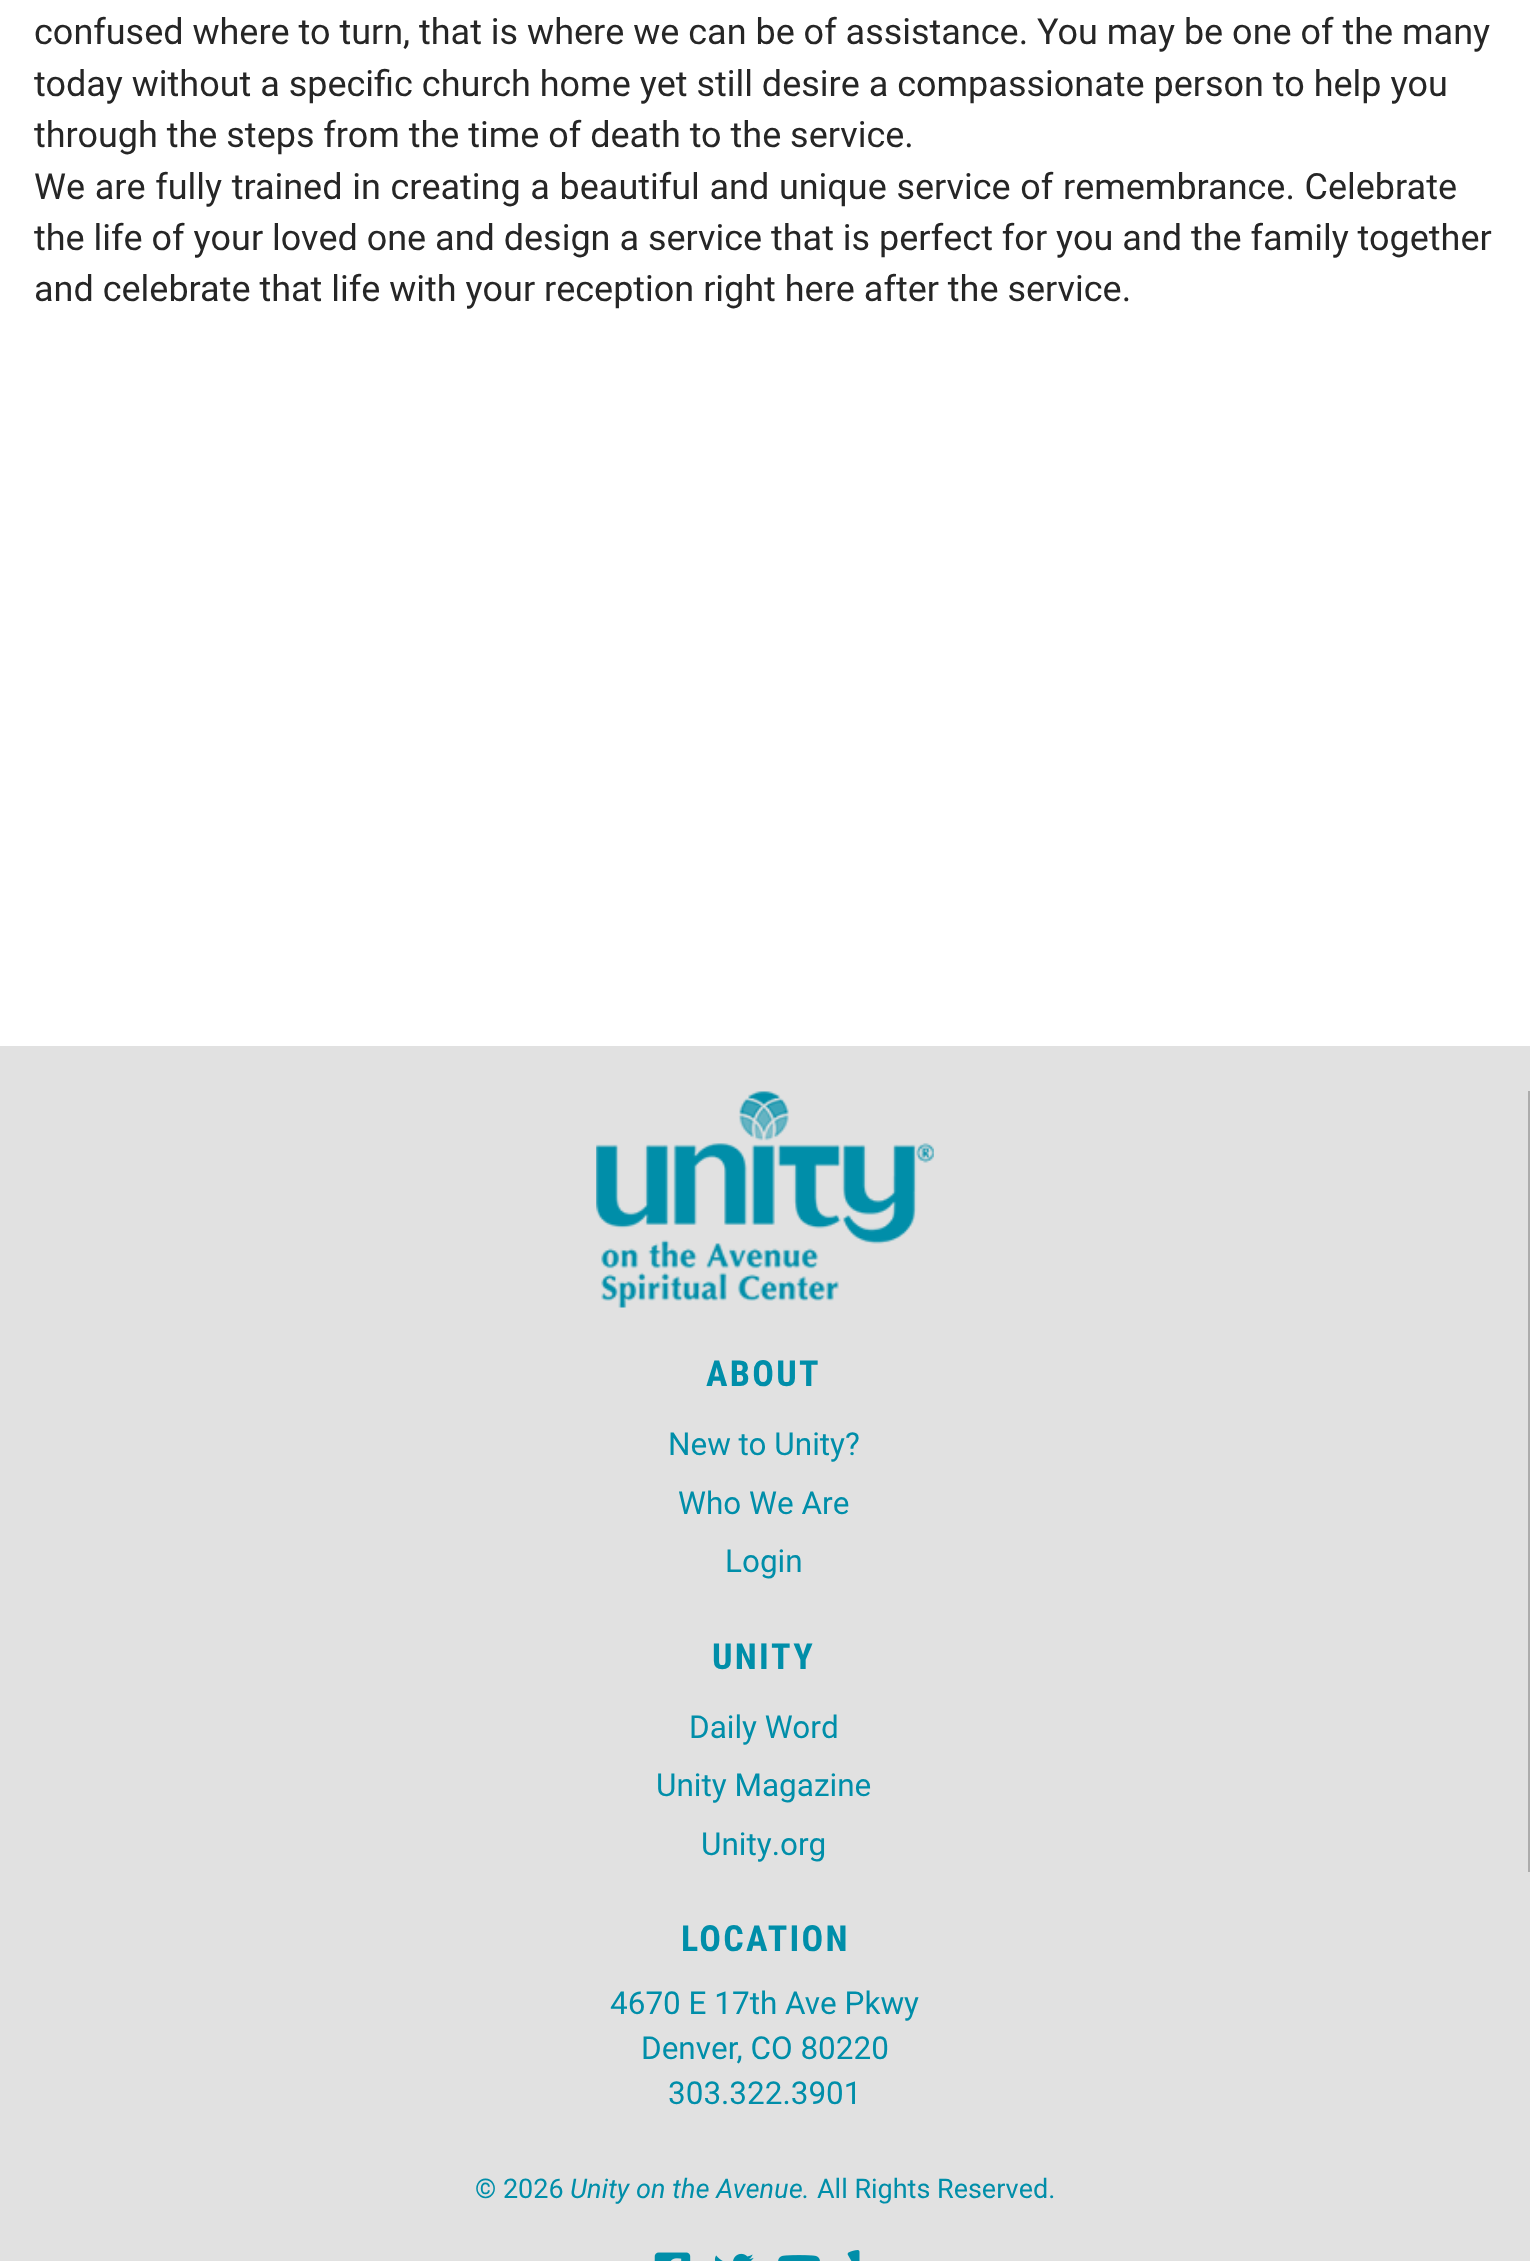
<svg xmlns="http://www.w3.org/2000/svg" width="1530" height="2261">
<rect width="100%" height="100%" fill="#fff"/>
<text x="34" y="44" style="font-family:Roboto;font-size:36px;fill:#262626">confused where to turn, that is where we can be of assistance. You may be one of the many</text>
<text x="34" y="96" style="font-family:Roboto;font-size:36px;fill:#262626">today without a specific church home yet still desire a compassionate person to help you</text>
<text x="34" y="147" style="font-family:Roboto;font-size:36px;fill:#262626">through the steps from the time of death to the service.</text>
<text x="34" y="199" word-spacing="0.75" style="font-family:Roboto;font-size:36px;fill:#262626">We are fully trained in creating a beautiful and unique service of remembrance. Celebrate</text>
<text x="34" y="250" style="font-family:Roboto;font-size:36px;fill:#262626">the life of your loved one and design a service that is perfect for you and the family together</text>
<text x="34" y="301" style="font-family:Roboto;font-size:36px;fill:#262626">and celebrate that life with your reception right here after the service.</text>
<rect y="1046" width="1530" height="1215" fill="#e1e1e1"/>
<rect x="1528" y="1091" width="2" height="781" fill="#acacac"/>
<image x="596" y="1091" width="338" height="217" href="media/1.png"/>
<text x="706" y="1386" style="font-family:Roboto Condensed;font-size:36px;font-weight:bold;letter-spacing:2.25px;fill:#008ea9">ABOUT</text>
<text x="668" y="1455" style="font-family:Roboto;font-size:31.5px;fill:#008ea9">New to Unity?</text>
<text x="678" y="1514" style="font-family:Roboto;font-size:31.5px;fill:#008ea9">Who We Are</text>
<text x="725" y="1572" style="font-family:Roboto;font-size:31.5px;fill:#008ea9">Login</text>
<text x="712" y="1669" style="font-family:Roboto Condensed;font-size:36px;font-weight:bold;letter-spacing:2.25px;fill:#008ea9">UNITY</text>
<text x="689" y="1738" style="font-family:Roboto;font-size:31.5px;fill:#008ea9">Daily Word</text>
<text x="656" y="1796" style="font-family:Roboto;font-size:31.5px;fill:#008ea9">Unity Magazine</text>
<text x="701" y="1855" style="font-family:Roboto;font-size:31.5px;fill:#008ea9">Unity.org</text>
<text x="681" y="1951" style="font-family:Roboto Condensed;font-size:36px;font-weight:bold;letter-spacing:2.25px;fill:#008ea9">LOCATION</text>
<text x="610" y="2014" style="font-family:Roboto;font-size:31.5px;fill:#008ea9">4670 E 17th Ave Pkwy</text>
<text x="641" y="2059" style="font-family:Roboto;font-size:31.5px;fill:#008ea9">Denver, CO 80220</text>
<text x="668" y="2104" style="font-family:Roboto;font-size:31.5px;fill:#008ea9">303.322.3901</text>
<text x="475" y="2198" style="font-family:Roboto;font-size:27px;fill:#008ea9">© 2026</text>
<text x="570" y="2198" style="font-family:Roboto;font-size:27px;font-style:italic;fill:#008ea9">Unity on the Avenue.</text>
<text x="817" y="2198" style="font-family:Roboto;font-size:27px;fill:#008ea9">All Rights Reserved.</text>
<image x="654" y="2252" width="37" height="9" href="media/2.png"/>
<image x="714" y="2253" width="40" height="8" href="media/3.png"/>
<image x="778" y="2255" width="42" height="6" href="media/4.png"/>
<image x="847" y="2250" width="13" height="11" href="media/5.png"/>
</svg>
